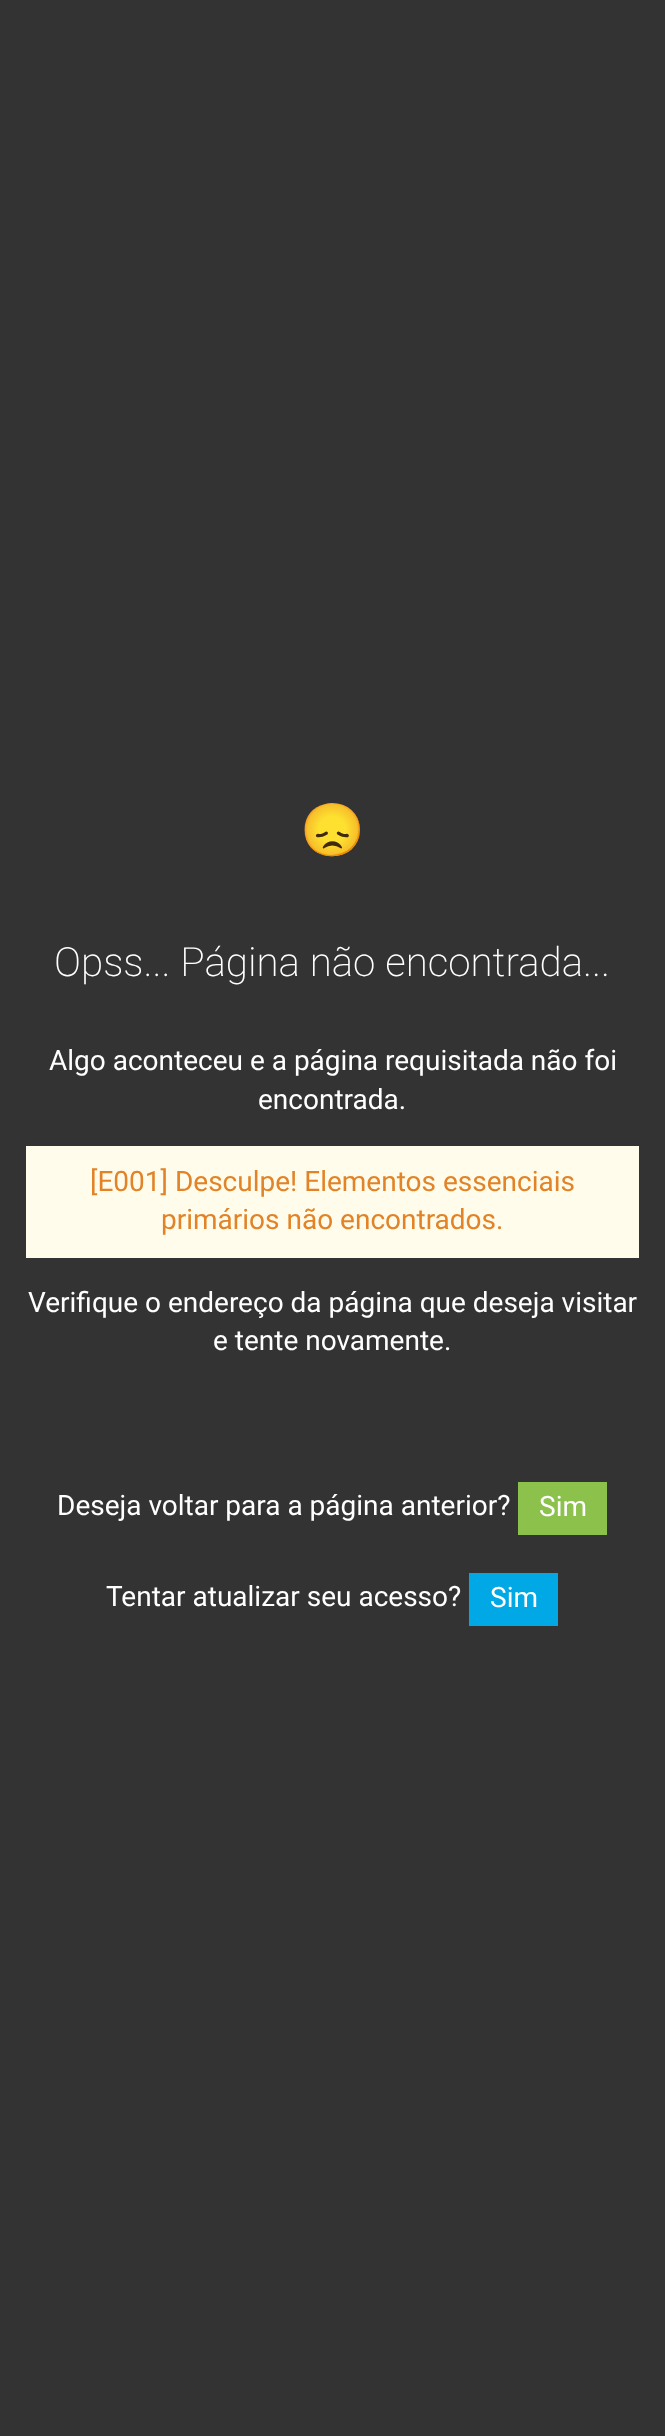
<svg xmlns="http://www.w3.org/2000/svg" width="665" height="2436">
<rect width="100%" height="100%" fill="#333"/>
<text x="300" y="848" style="font-family:Noto Color Emoji;font-size:52px;fill:#fff">😞</text>
<text x="54" y="976" style="font-family:Roboto;font-size:40.25px;font-weight:200;fill:#fff">Opss... Página não encontrada...</text>
<text x="49" y="1070" style="font-family:Roboto;font-size:28px;fill:#fff">Algo aconteceu e a página requisitada não foi</text>
<text x="258" y="1109" style="font-family:Roboto;font-size:28px;fill:#fff">encontrada.</text>
<rect x="26" y="1146" width="613" height="112" fill="#fffceb"/>
<text x="90" y="1191" style="font-family:Roboto;font-size:28px;fill:#e28327">[E001] Desculpe! Elementos essenciais</text>
<text x="161" y="1229" style="font-family:Roboto;font-size:28px;fill:#e28327">primários não encontrados.</text>
<text x="28" y="1312" style="font-family:Roboto;font-size:28px;fill:#fff">Verifique o endereço da página que deseja visitar</text>
<text x="213" y="1350" style="font-family:Roboto;font-size:28px;fill:#fff">e tente novamente.</text>
<text x="57" y="1515" style="font-family:Roboto;font-size:28px;fill:#fff">Deseja voltar para a página anterior?</text>
<rect x="518" y="1482" width="89" height="53" fill="#8cc14c"/>
<text x="539" y="1516" style="font-family:Roboto;font-size:28px;fill:#fff">Sim</text>
<text x="106" y="1606" style="font-family:Roboto;font-size:28px;fill:#fff">Tentar atualizar seu acesso?</text>
<rect x="469" y="1573" width="89" height="53" fill="#00a8e6"/>
<text x="490" y="1607" style="font-family:Roboto;font-size:28px;fill:#fff">Sim</text>
</svg>
